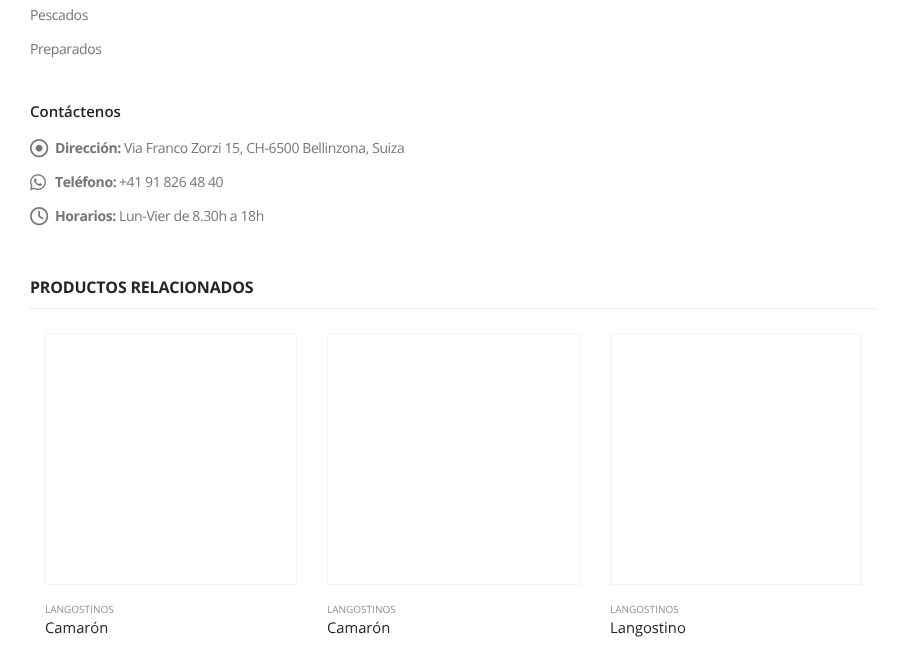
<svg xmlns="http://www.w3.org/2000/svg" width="907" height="653">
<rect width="100%" height="100%" fill="#fff"/>
<text x="30" y="20" style="font-family:Open Sans;font-size:14px;letter-spacing:-0.4px;fill:#777">Pescados</text>
<text x="30" y="54" style="font-family:Open Sans;font-size:14px;letter-spacing:-0.4px;fill:#777">Preparados</text>
<text x="30" y="117" style="font-family:Open Sans;font-size:15px;font-weight:600;fill:#222529">Contáctenos</text>
<image x="30" y="139" width="19" height="19" href="media/1.png"/>
<text x="55" y="153" style="font-family:Open Sans;font-size:14px;font-weight:bold;letter-spacing:-0.4px;fill:#777">Dirección:</text>
<text x="124" y="153" style="font-family:Open Sans;font-size:14px;letter-spacing:-0.4px;fill:#777">Via Franco Zorzi 15, CH-6500 Bellinzona, Suiza</text>
<image x="30" y="174" width="16" height="17" href="media/2.png"/>
<text x="55" y="187" style="font-family:Open Sans;font-size:14px;font-weight:bold;letter-spacing:-0.4px;fill:#777">Teléfono:</text>
<text x="119" y="187" style="font-family:Open Sans;font-size:14px;letter-spacing:-0.4px;fill:#777">+41 91 826 48 40</text>
<image x="30" y="207" width="19" height="19" href="media/3.png"/>
<text x="55" y="221" style="font-family:Open Sans;font-size:14px;font-weight:bold;letter-spacing:-0.4px;fill:#777">Horarios:</text>
<text x="119" y="221" style="font-family:Open Sans;font-size:14px;letter-spacing:-0.4px;fill:#777">Lun-Vier de 8.30h a 18h</text>
<rect x="30" y="308" width="847" height="1" fill="#ebebeb"/>
<text x="30" y="293" style="font-family:Open Sans;font-size:16px;font-weight:bold;letter-spacing:-0.2px;fill:#222529">PRODUCTOS RELACIONADOS</text>
<rect x="45.5" y="333.5" width="251" height="251" fill="none" stroke="#f4f4f4"/>
<text x="45" y="613" style="font-family:Open Sans;font-size:10px;fill:#929292">LANGOSTINOS</text>
<text x="45" y="633" style="font-family:Open Sans;font-size:14.75px;fill:#222529">Camarón</text>
<rect x="327.5" y="333.5" width="252" height="251" fill="none" stroke="#f4f4f4"/>
<text x="327" y="613" style="font-family:Open Sans;font-size:10px;fill:#929292">LANGOSTINOS</text>
<text x="327" y="633" style="font-family:Open Sans;font-size:14.75px;fill:#222529">Camarón</text>
<rect x="610.5" y="333.5" width="251" height="251" fill="none" stroke="#f4f4f4"/>
<text x="610" y="613" style="font-family:Open Sans;font-size:10px;fill:#929292">LANGOSTINOS</text>
<text x="610" y="633" style="font-family:Open Sans;font-size:14.75px;fill:#222529">Langostino</text>
</svg>
